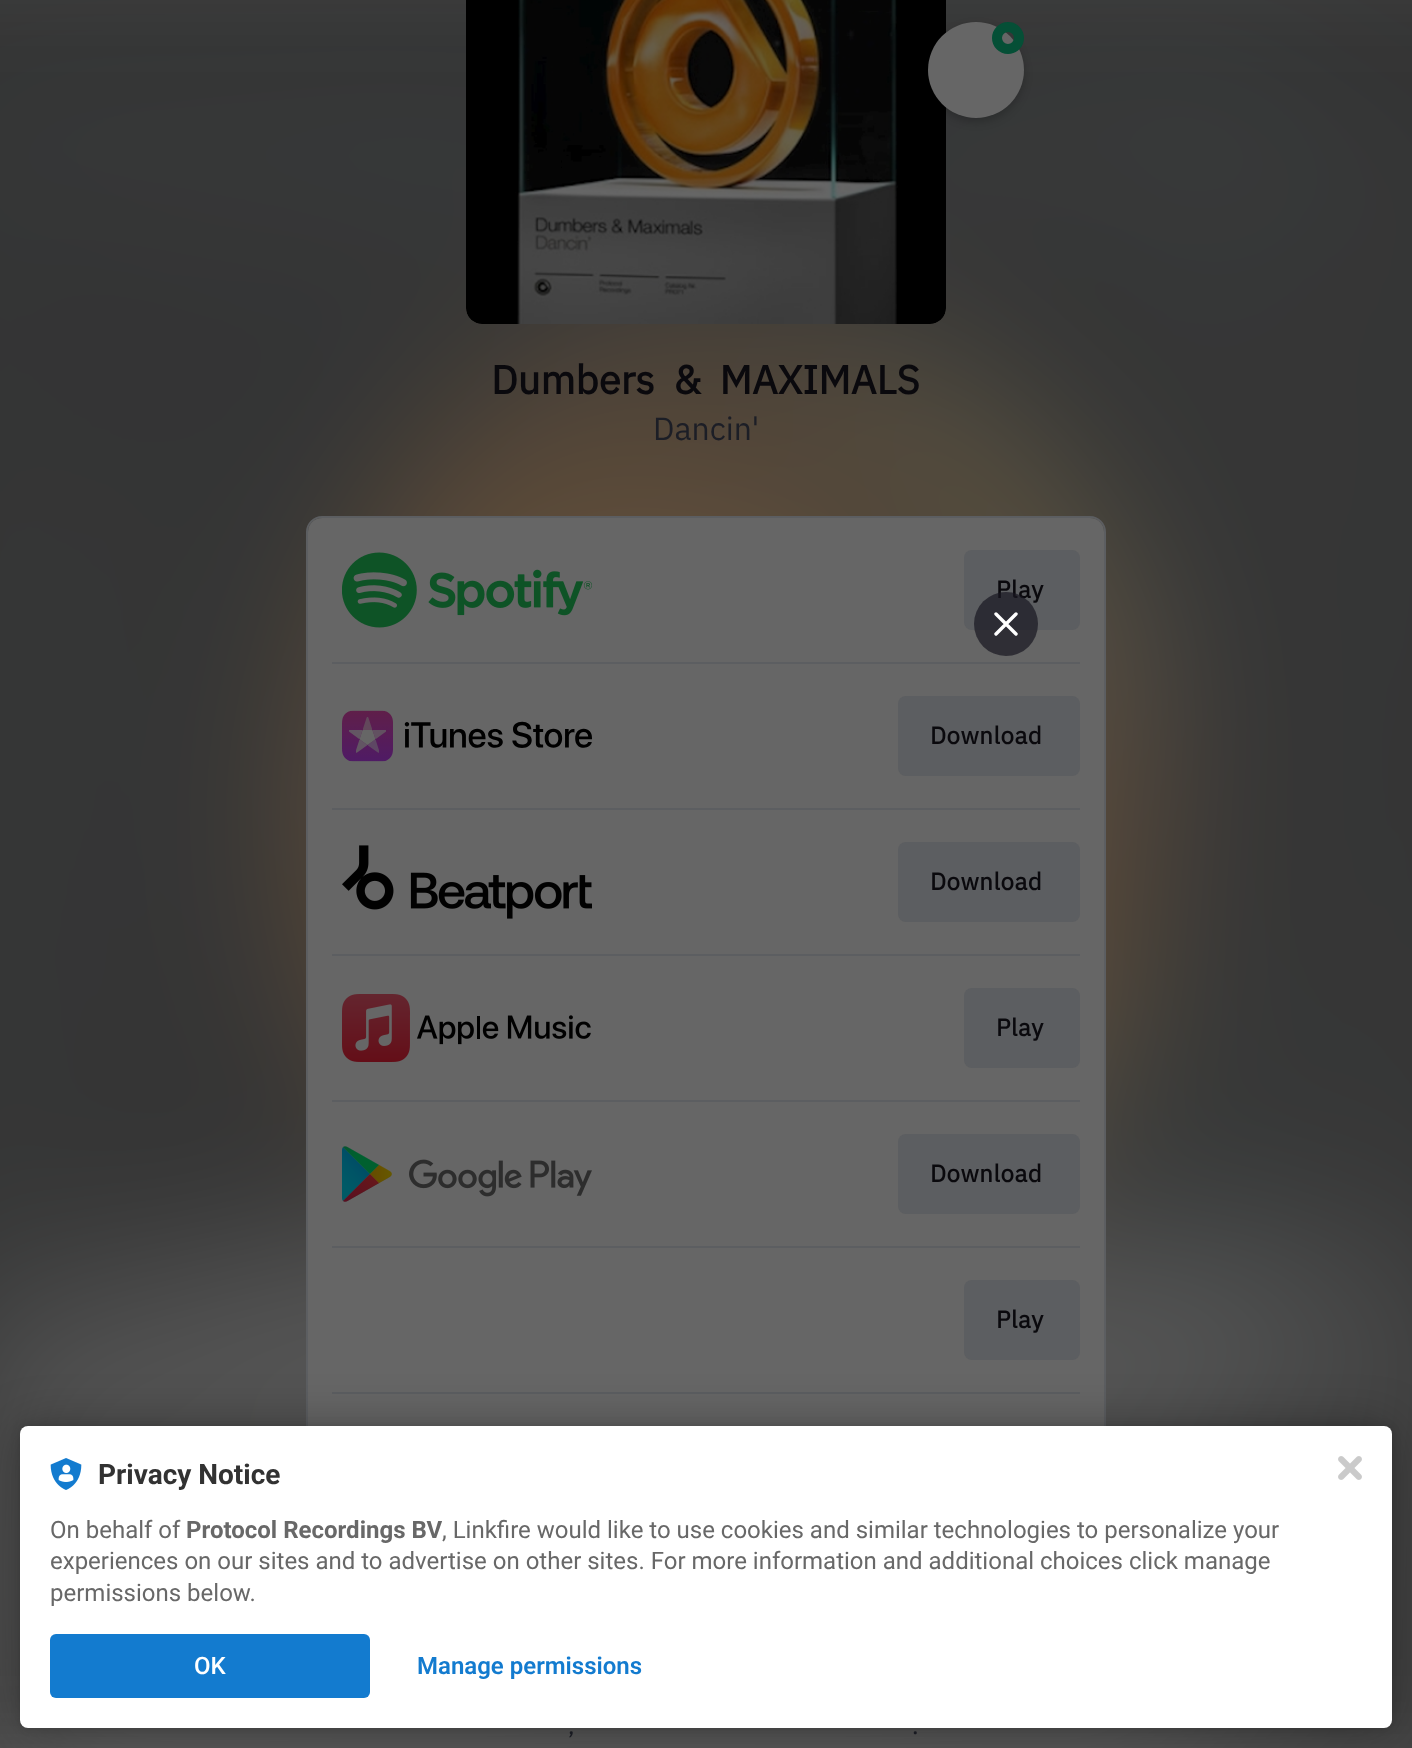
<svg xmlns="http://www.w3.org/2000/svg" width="1412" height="1748">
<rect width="100%" height="100%" fill="#666"/>
<image x="0" y="0" width="1412" height="1748" href="media/1.png"/>
<image x="466" y="0" width="480" height="324" href="media/2.png"/>
<rect x="928" y="26" width="96" height="96" rx="48" fill="#00000033" filter="blur(4px)"/>
<circle cx="976" cy="70" r="48" fill="#666"/>
<circle cx="1008" cy="38" r="11" fill="none" stroke="#054f36" stroke-width="10"/>
<rect x="307" y="517" width="798" height="1168" rx="15" fill="none" stroke="#5c5e61" stroke-width="2"/>
<rect x="308" y="518" width="796" height="1166" rx="14" fill="#666"/>
<rect x="964" y="550" width="116" height="80" rx="8" fill="#5c5e61"/>
<text x="996" y="598" style="font-family:IBM Plex Sans;font-size:24px;font-weight:bold;letter-spacing:0.5px;fill:#0a090d">Play</text>
<circle cx="1006" cy="624" r="32" fill="#181721b3"/>
<path d="M996 614l20 20m-20 0l20-20" fill="none" stroke="#fff" stroke-width="3.4" stroke-linecap="round" stroke-linejoin="round"/>
<text x="491" y="394" word-spacing="9" style="font-family:IBM Plex Sans;font-size:40px;font-weight:bold;fill:#0a090d">Dumbers &amp; MAXIMALS</text>
<text x="653" y="440" style="font-family:IBM Plex Sans;font-size:32px;fill:#1c1e26">Dancin'</text>
<image x="342" y="552" width="250" height="76" href="media/3.png"/>
<rect x="332" y="662" width="748" height="2" fill="#5c5e61"/>
<image x="342" y="710" width="250" height="52" href="media/4.png"/>
<rect x="898" y="696" width="182" height="80" rx="8" fill="#5c5e61"/>
<text x="930" y="744" style="font-family:IBM Plex Sans;font-size:24px;font-weight:bold;letter-spacing:0.5px;fill:#0a090d">Download</text>
<rect x="332" y="808" width="748" height="2" fill="#5c5e61"/>
<image x="342" y="845" width="250" height="74" href="media/5.png"/>
<rect x="898" y="842" width="182" height="80" rx="8" fill="#5c5e61"/>
<text x="930" y="890" style="font-family:IBM Plex Sans;font-size:24px;font-weight:bold;letter-spacing:0.5px;fill:#0a090d">Download</text>
<rect x="332" y="954" width="748" height="2" fill="#5c5e61"/>
<image x="342" y="994" width="249" height="68" href="media/6.png"/>
<rect x="964" y="988" width="116" height="80" rx="8" fill="#5c5e61"/>
<text x="996" y="1036" style="font-family:IBM Plex Sans;font-size:24px;font-weight:bold;letter-spacing:0.5px;fill:#0a090d">Play</text>
<rect x="332" y="1100" width="748" height="2" fill="#5c5e61"/>
<image x="342" y="1146" width="250" height="56" href="media/7.png"/>
<rect x="898" y="1134" width="182" height="80" rx="8" fill="#5c5e61"/>
<text x="930" y="1182" style="font-family:IBM Plex Sans;font-size:24px;font-weight:bold;letter-spacing:0.5px;fill:#0a090d">Download</text>
<rect x="332" y="1246" width="748" height="2" fill="#5c5e61"/>
<rect x="964" y="1280" width="116" height="80" rx="8" fill="#5c5e61"/>
<text x="996" y="1328" style="font-family:IBM Plex Sans;font-size:24px;font-weight:bold;letter-spacing:0.5px;fill:#0a090d">Play</text>
<rect x="332" y="1392" width="748" height="2" fill="#5c5e61"/>
<text x="568" y="1734" style="font-family:IBM Plex Sans;font-size:24px;fill:#1c1e26">,</text>
<text x="912" y="1734" style="font-family:IBM Plex Sans;font-size:24px;fill:#1c1e26">.</text>
<rect x="20" y="1426" width="1372" height="302" rx="8" fill="#0000001f" filter="blur(4px)"/>
<rect x="20" y="1426" width="1372" height="302" rx="8" fill="#0000004d" filter="blur(24px)"/>
<rect x="20" y="1426" width="1372" height="302" rx="8" fill="#fff"/>
<image x="50" y="1458" width="32" height="32" href="media/8.png"/>
<text x="98" y="1484" style="font-family:Roboto;font-size:28px;font-weight:bold;fill:#323232">Privacy Notice</text>
<text x="50" y="1538" style="font-family:Roboto;font-size:24px;fill:#686868">On behalf of</text>
<text x="186" y="1538" style="font-family:Roboto;font-size:24px;font-weight:bold;fill:#686868">Protocol Recordings BV</text>
<text x="442" y="1538" style="font-family:Roboto;font-size:24px;fill:#686868">, Linkfire would like to use cookies and similar technologies to personalize your</text>
<text x="50" y="1569" style="font-family:Roboto;font-size:24px;fill:#686868">experiences on our sites and to advertise on other sites. For more information and additional choices click manage</text>
<text x="50" y="1601" style="font-family:Roboto;font-size:24px;fill:#686868">permissions below.</text>
<rect x="50" y="1634" width="320" height="64" rx="6" fill="#137bcf"/>
<text x="194" y="1674" style="font-family:Roboto;font-size:24px;font-weight:500;fill:#fff">OK</text>
<text x="417" y="1674" style="font-family:Roboto;font-size:24px;font-weight:600;fill:#137bcf">Manage permissions</text>
<image x="1338" y="1456" width="24" height="24" href="media/9.png"/>
</svg>
